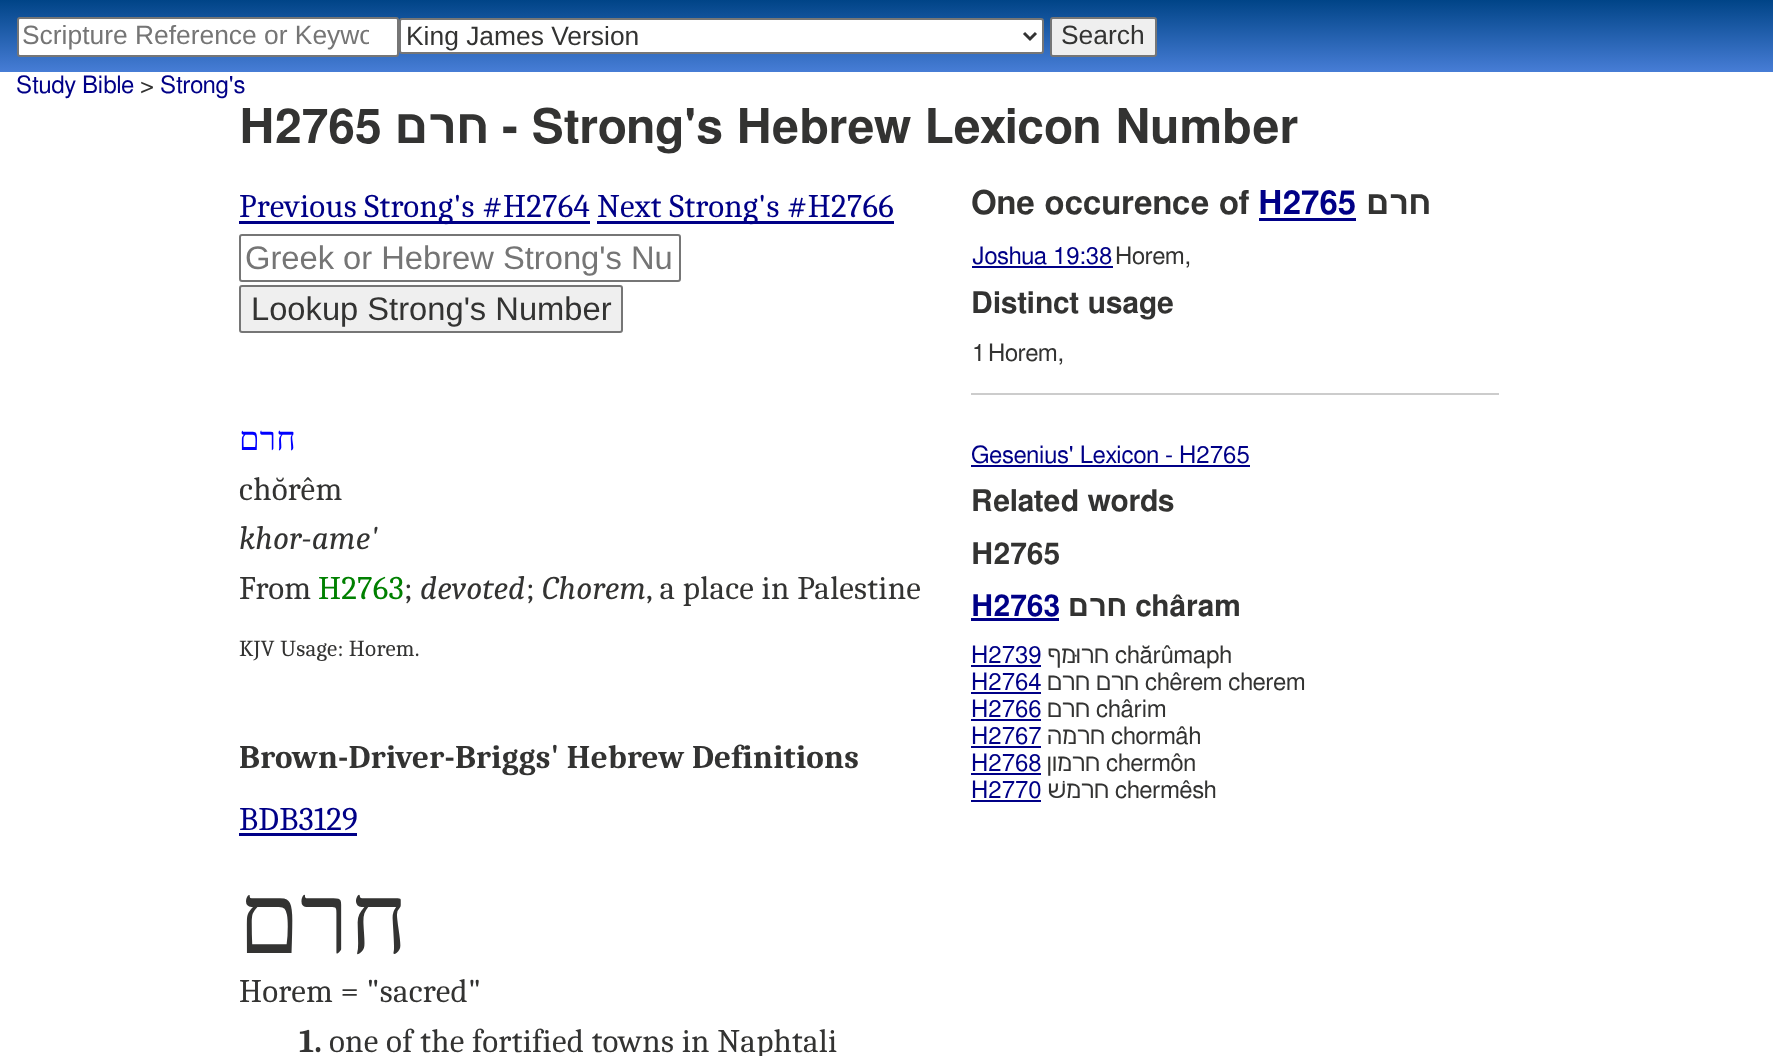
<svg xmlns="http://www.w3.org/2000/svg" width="1773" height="1056">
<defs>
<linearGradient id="g1" gradientUnits="userSpaceOnUse" x1="887" y1="0" x2="887" y2="72"><stop offset="0" stop-color="#004487"/><stop offset="1" stop-color="#477dd6"/></linearGradient>
<clipPath id="clip1"><rect x="23" y="21" width="346" height="32"/></clipPath>
</defs>
<rect width="100%" height="100%" fill="#fff"/>
<rect width="1773" height="72" fill="url(#g1)"/>
<rect x="18" y="18" width="380" height="38" rx="2" fill="#fff" stroke="#767676" stroke-width="2"/>
<g clip-path="url(#clip1)">
<text x="22" y="44" style="font-family:Liberation Sans;font-size:26.4px;fill:#757575">Scripture Reference or Keywo</text>
</g>
<rect x="400" y="19" width="643" height="34" rx="2" fill="#fff" stroke="#767676" stroke-width="2"/>
<path d="M1024 33l6 6l6-6" fill="none" stroke="#333" stroke-width="3"/>
<text x="406" y="45" style="font-family:Liberation Sans;font-size:26.4px;fill:#333332">King James Version</text>
<rect x="1051" y="18" width="105" height="38" rx="2" fill="#efefef" stroke="#767676" stroke-width="2"/>
<text x="1061" y="44" style="font-family:Liberation Sans;font-size:26.4px;fill:#333332">Search</text>
<text x="16" y="93" style="font-family:FreeSans;font-size:24px;fill:#000087">Study Bible</text>
<text x="140" y="93" style="font-family:FreeSans;font-size:24px;fill:#333332">&gt;</text>
<text x="160" y="93" style="font-family:FreeSans;font-size:24px;fill:#000087">Strong's</text>
<text x="239" y="143" style="font-family:FreeSans;font-size:48px;font-weight:600;fill:#333332">H2765</text>
<text x="489" y="143" style="font-family:FreeSans;font-size:48px;font-weight:600;direction:rtl;fill:#333332">חרם</text>
<text x="502" y="143" style="font-family:FreeSans;font-size:48px;font-weight:600;fill:#333332">- Strong's Hebrew Lexicon Number</text>
<rect x="239" y="221" width="351" height="3" fill="#000087"/>
<text x="239" y="217" style="font-family:Caladea;font-size:33px;letter-spacing:0.25px;fill:#000087">Previous Strong's #H2764</text>
<rect x="597" y="221" width="297" height="3" fill="#000087"/>
<text x="597" y="217" style="font-family:Caladea;font-size:33px;letter-spacing:0.25px;fill:#000087">Next Strong's #H2766</text>
<rect x="240" y="235" width="440" height="46" rx="2" fill="none" stroke="#767676" stroke-width="2"/>
<text x="245" y="269" style="font-family:Liberation Sans;font-size:32.7px;fill:#757575">Greek or Hebrew Strong's Nu</text>
<rect x="240" y="286" width="382" height="46" rx="2" fill="#efefef" stroke="#767676" stroke-width="2"/>
<text x="251" y="320" style="font-family:Liberation Sans;font-size:32.7px;fill:#333332">Lookup Strong's Number</text>
<text x="296" y="450" style="font-family:Liberation Serif;font-size:33px;letter-spacing:0.25px;direction:rtl;fill:#00f">חרם</text>
<text x="239" y="500" style="font-family:Caladea;font-size:33px;letter-spacing:0.25px;fill:#333332">chŏrêm</text>
<text x="239" y="549" style="font-family:Caladea;font-size:33px;font-style:italic;letter-spacing:0.25px;fill:#333332">khor-ame'</text>
<text x="239" y="599" style="font-family:Caladea;font-size:33px;letter-spacing:0.25px;fill:#333332">From</text>
<text x="318" y="599" style="font-family:Caladea;font-size:33px;letter-spacing:0.25px;fill:#008000">H2763</text>
<text x="404" y="599" style="font-family:Caladea;font-size:33px;letter-spacing:0.25px;fill:#333332">;</text>
<text x="420" y="599" style="font-family:Caladea;font-size:33px;font-style:italic;letter-spacing:0.25px;fill:#333332">devoted</text>
<text x="526" y="599" style="font-family:Caladea;font-size:33px;letter-spacing:0.25px;fill:#333332">;</text>
<text x="542" y="599" style="font-family:Caladea;font-size:33px;font-style:italic;letter-spacing:0.25px;fill:#333332">Chorem</text>
<text x="646" y="599" style="font-family:Caladea;font-size:33px;letter-spacing:0.25px;fill:#333332">, a place in Palestine</text>
<text x="239" y="656" style="font-family:Caladea;font-size:23px;letter-spacing:0.25px;fill:#333332">KJV Usage: Horem.</text>
<text x="239" y="768" style="font-family:Caladea;font-size:33px;font-weight:bold;letter-spacing:0.25px;fill:#333332">Brown-Driver-Briggs' Hebrew Definitions</text>
<text x="239" y="830" style="font-family:Caladea;font-size:33px;letter-spacing:0.25px;fill:#000087">BDB3129</text>
<rect x="239" y="833" width="118" height="3" fill="#000087"/>
<text x="408" y="953" style="font-family:Liberation Serif;font-size:99px;letter-spacing:0.25px;direction:rtl;fill:#333332">חרם</text>
<text x="239" y="1002" style="font-family:Caladea;font-size:33px;letter-spacing:0.25px;fill:#333332">Horem = "sacred"</text>
<text x="299" y="1052" style="font-family:Caladea;font-size:33px;font-weight:bold;letter-spacing:0.25px;fill:#333332">1.</text>
<text x="329" y="1052" style="font-family:Caladea;font-size:33px;letter-spacing:0.25px;fill:#333332">one of the fortified towns in Naphtali</text>
<text x="971" y="214" style="font-family:FreeSans;font-size:33px;font-weight:600;fill:#333332">One occurence of</text>
<text x="1258" y="214" style="font-family:FreeSans;font-size:33px;font-weight:600;fill:#000087">H2765</text>
<rect x="1259" y="218" width="97" height="3" fill="#000087"/>
<text x="1431" y="214" style="font-family:FreeSans;font-size:33px;font-weight:600;direction:rtl;fill:#333332">חרם</text>
<text x="972" y="264" style="font-family:FreeSans;font-size:24px;fill:#000087">Joshua 19:38</text>
<rect x="972" y="266" width="141" height="2" fill="#000087"/>
<text x="1115" y="264" style="font-family:FreeSans;font-size:24px;fill:#333332">Horem,</text>
<text x="971" y="313" style="font-family:FreeSans;font-size:30px;font-weight:600;fill:#333332">Distinct usage</text>
<text x="972" y="361" style="font-family:FreeSans;font-size:24px;fill:#333332">1</text>
<text x="988" y="361" style="font-family:FreeSans;font-size:24px;fill:#333332">Horem,</text>
<rect x="971" y="393" width="528" height="2" fill="#ccc"/>
<text x="971" y="463" style="font-family:FreeSans;font-size:24px;fill:#000087">Gesenius' Lexicon - H2765</text>
<rect x="971" y="465" width="279" height="2" fill="#000087"/>
<text x="971" y="511" style="font-family:FreeSans;font-size:30px;font-weight:600;fill:#333332">Related words</text>
<text x="971" y="564" style="font-family:FreeSans;font-size:30px;font-weight:600;fill:#333332">H2765</text>
<text x="971" y="616" style="font-family:FreeSans;font-size:30px;font-weight:600;fill:#000087">H2763</text>
<rect x="971" y="618" width="88" height="3" fill="#000087"/>
<text x="1127" y="616" style="font-family:FreeSans;font-size:30px;font-weight:600;direction:rtl;fill:#333332">חרם</text>
<text x="1135" y="616" style="font-family:FreeSans;font-size:30px;font-weight:600;fill:#333332">châram</text>
<text x="971" y="663" style="font-family:FreeSans;font-size:24px;fill:#000087">H2739</text>
<rect x="971" y="665" width="70" height="2" fill="#000087"/>
<text x="1109" y="663" style="font-family:FreeSans;font-size:24px;direction:rtl;fill:#333332">חרוּמף</text>
<text x="1115" y="663" style="font-family:FreeSans;font-size:24px;fill:#333332">chărûmaph</text>
<text x="971" y="690" style="font-family:FreeSans;font-size:24px;fill:#000087">H2764</text>
<rect x="971" y="692" width="70" height="2" fill="#000087"/>
<text x="1090" y="690" style="font-family:FreeSans;font-size:24px;direction:rtl;fill:#333332">חרם</text>
<text x="1139" y="690" style="font-family:FreeSans;font-size:24px;direction:rtl;fill:#333332">חרם</text>
<text x="1145" y="690" style="font-family:FreeSans;font-size:24px;fill:#333332">chêrem cherem</text>
<text x="971" y="717" style="font-family:FreeSans;font-size:24px;fill:#000087">H2766</text>
<rect x="971" y="719" width="70" height="2" fill="#000087"/>
<text x="1090" y="717" style="font-family:FreeSans;font-size:24px;direction:rtl;fill:#333332">חרם</text>
<text x="1096" y="717" style="font-family:FreeSans;font-size:24px;fill:#333332">chârim</text>
<text x="971" y="744" style="font-family:FreeSans;font-size:24px;fill:#000087">H2767</text>
<rect x="971" y="746" width="70" height="2" fill="#000087"/>
<text x="1105" y="744" style="font-family:FreeSans;font-size:24px;direction:rtl;fill:#333332">חרמה</text>
<text x="1111" y="744" style="font-family:FreeSans;font-size:24px;fill:#333332">chormâh</text>
<text x="971" y="771" style="font-family:FreeSans;font-size:24px;fill:#000087">H2768</text>
<rect x="971" y="773" width="70" height="2" fill="#000087"/>
<text x="1100" y="771" style="font-family:FreeSans;font-size:24px;direction:rtl;fill:#333332">חרמון</text>
<text x="1106" y="771" style="font-family:FreeSans;font-size:24px;fill:#333332">chermôn</text>
<text x="971" y="798" style="font-family:FreeSans;font-size:24px;fill:#000087">H2770</text>
<rect x="971" y="800" width="70" height="2" fill="#000087"/>
<text x="1109" y="798" style="font-family:FreeSans;font-size:24px;direction:rtl;fill:#333332">חרמשׁ</text>
<text x="1115" y="798" style="font-family:FreeSans;font-size:24px;fill:#333332">chermêsh</text>
</svg>
